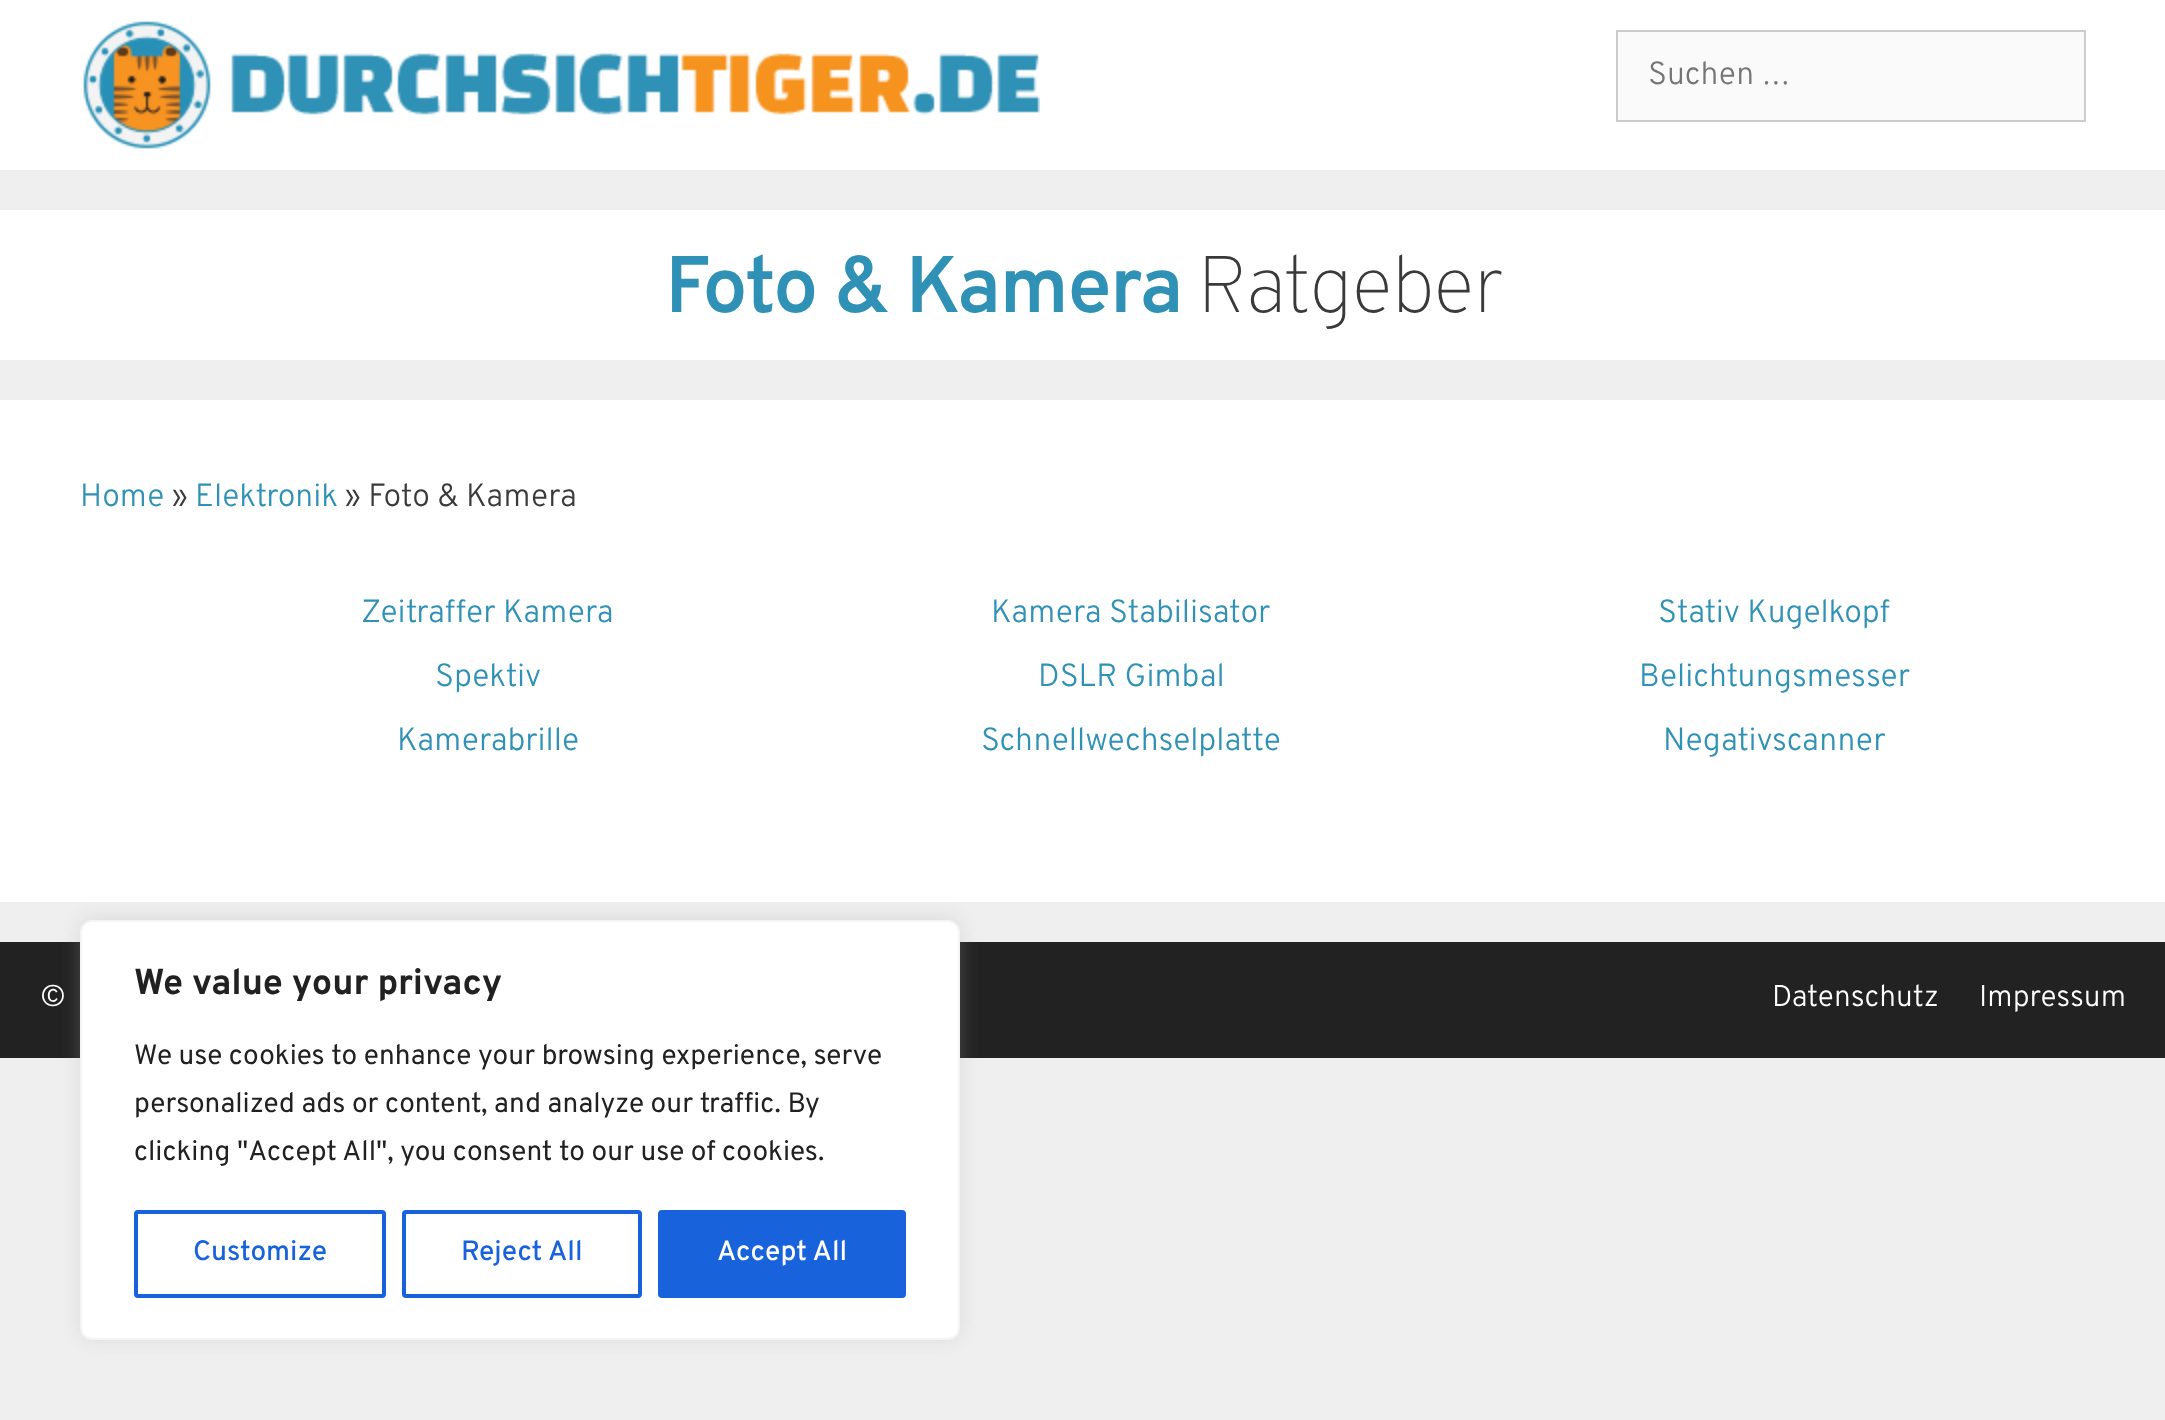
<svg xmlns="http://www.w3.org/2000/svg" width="2165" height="1420">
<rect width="100%" height="100%" fill="#efefef"/>
<rect width="2165" height="170" fill="#fff"/>
<image x="83" y="21" width="957" height="128" href="media/1.png"/>
<rect x="1617" y="31" width="468" height="90" fill="#fafafa" stroke="#ccc" stroke-width="2"/>
<text x="1648" y="84" style="font-family:Overpass;font-size:32px;font-weight:300;fill:#757575">Suchen …</text>
<rect y="210" width="2165" height="150" fill="#fff"/>
<text x="665" y="312" style="font-family:Overpass;font-size:80px;font-weight:600;letter-spacing:-2px;fill:#2f91b5">Foto &amp; Kamera</text>
<text x="1197" y="312" style="font-family:Overpass;font-size:80px;font-weight:100;letter-spacing:-2px;fill:#3a3a3a">Ratgeber</text>
<rect y="400" width="2165" height="502" fill="#fff"/>
<text x="80" y="506" style="font-family:Overpass;font-size:32px;font-weight:300;fill:#2f91b5">Home</text>
<text x="172" y="506" style="font-family:Overpass;font-size:32px;font-weight:300;fill:#3a3a3a">»</text>
<text x="195" y="506" style="font-family:Overpass;font-size:32px;font-weight:300;fill:#2f91b5">Elektronik</text>
<text x="345" y="506" style="font-family:Overpass;font-size:32px;font-weight:300;fill:#3a3a3a">» Foto &amp; Kamera</text>
<text x="361" y="622" style="font-family:Overpass;font-size:32px;font-weight:300;fill:#2f91b5">Zeitraffer Kamera</text>
<text x="991" y="622" style="font-family:Overpass;font-size:32px;font-weight:300;fill:#2f91b5">Kamera Stabilisator</text>
<text x="1658" y="622" style="font-family:Overpass;font-size:32px;font-weight:300;fill:#2f91b5">Stativ Kugelkopf</text>
<text x="435" y="686" style="font-family:Overpass;font-size:32px;font-weight:300;fill:#2f91b5">Spektiv</text>
<text x="1038" y="686" style="font-family:Overpass;font-size:32px;font-weight:300;fill:#2f91b5">DSLR Gimbal</text>
<text x="1639" y="686" style="font-family:Overpass;font-size:32px;font-weight:300;fill:#2f91b5">Belichtungsmesser</text>
<text x="397" y="750" style="font-family:Overpass;font-size:32px;font-weight:300;fill:#2f91b5">Kamerabrille</text>
<text x="981" y="750" style="font-family:Overpass;font-size:32px;font-weight:300;fill:#2f91b5">Schnellwechselplatte</text>
<text x="1663" y="750" style="font-family:Overpass;font-size:32px;font-weight:300;fill:#2f91b5">Negativscanner</text>
<rect y="942" width="2165" height="116" fill="#222"/>
<rect x="80" y="918" width="880" height="420" rx="12" fill="#acabab4d" filter="blur(10px)"/>
<rect x="81" y="921" width="878" height="418" rx="11" fill="#fff" stroke="#f4f4f4" stroke-width="2"/>
<text x="134" y="994" style="font-family:Overpass;font-size:36px;font-weight:bold;fill:#212121">We value your privacy</text>
<text x="134" y="1064" style="font-family:Overpass;font-size:28px;fill:#212121">We use cookies to enhance your browsing experience, serve</text>
<text x="134" y="1112" style="font-family:Overpass;font-size:28px;fill:#212121">personalized ads or content, and analyze our traffic. By</text>
<text x="134" y="1160" style="font-family:Overpass;font-size:28px;fill:#212121">clicking "Accept All", you consent to our use of cookies.</text>
<rect x="136" y="1212" width="248" height="84" rx="2" fill="none" stroke="#1863dc" stroke-width="4"/>
<text x="193" y="1260" style="font-family:Overpass;font-size:28px;font-weight:500;fill:#1863dc">Customize</text>
<rect x="404" y="1212" width="236" height="84" rx="2" fill="none" stroke="#1863dc" stroke-width="4"/>
<text x="461" y="1260" style="font-family:Overpass;font-size:28px;font-weight:500;fill:#1863dc">Reject All</text>
<rect x="660" y="1212" width="244" height="84" rx="2" fill="#1863dc" stroke="#1863dc" stroke-width="4"/>
<text x="717" y="1260" style="font-family:Overpass;font-size:28px;font-weight:500;fill:#fff">Accept All</text>
<text x="40" y="1006" style="font-family:Overpass;font-size:30px;font-weight:300;fill:#fff">©</text>
<text x="1772" y="1006" style="font-family:Overpass;font-size:30px;font-weight:300;fill:#fff">Datenschutz</text>
<text x="1979" y="1006" style="font-family:Overpass;font-size:30px;font-weight:300;fill:#fff">Impressum</text>
</svg>
